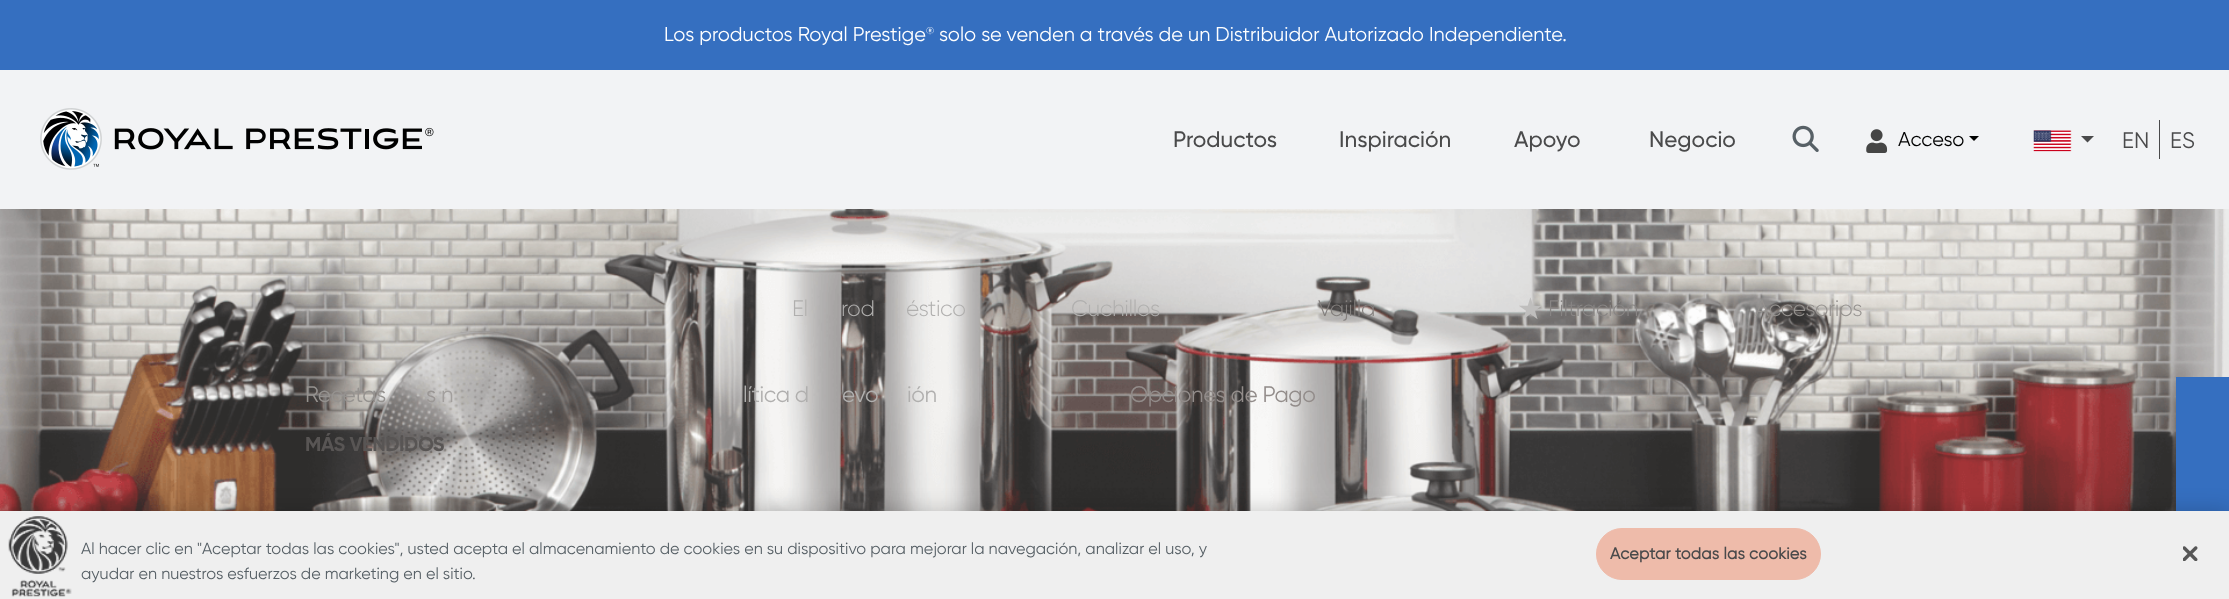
<svg xmlns="http://www.w3.org/2000/svg" width="2229" height="599">
<rect width="100%" height="100%" fill="#fff"/>
<rect y="70" width="2229" height="139" fill="#f2f3f5"/>
<rect width="2229" height="70" fill="#356fc0"/>
<text x="664" y="41" style="font-family:Gilroy;font-size:20px;fill:#fff">Los productos Royal Prestige</text>
<text x="926" y="34" style="font-family:Gilroy;font-size:10px;fill:#fff">®</text>
<text x="939" y="41" style="font-family:Gilroy;font-size:20px;fill:#fff">solo se venden a través de un Distribuidor Autorizado Independiente.</text>
<image x="40" y="108" width="394" height="62" href="media/1.png"/>
<image x="1792" y="125" width="27" height="27" href="media/2.png"/>
<text x="1173" y="147" style="font-family:Gilroy;font-size:22.5px;font-weight:500;fill:#4a4a4b">Productos</text>
<image x="0" y="209" width="2229" height="302" href="media/5.png"/>
<text x="792" y="316" style="font-family:Gilroy;font-size:22.5px;font-weight:300;letter-spacing:-0.4px;fill:#b0afae">El</text>
<text x="841" y="316" style="font-family:Gilroy;font-size:22.5px;font-weight:300;letter-spacing:-0.4px;fill:#b0afae">rod</text>
<text x="906" y="316" style="font-family:Gilroy;font-size:22.5px;font-weight:300;letter-spacing:-0.4px;fill:#b0afae">éstico</text>
<text x="1071" y="316" style="font-family:Gilroy;font-size:22.5px;font-weight:300;letter-spacing:-0.4px;fill:#b0afae">Cuchillos</text>
<text x="1318" y="316" style="font-family:Gilroy;font-size:22.5px;font-weight:300;letter-spacing:-0.4px;fill:#837f7d">Vajilla</text>
<text x="1517" y="319" style="font-family:DejaVu Sans;font-size:30px;letter-spacing:-0.4px;fill:#bfbebd">★</text>
<text x="1548" y="316" style="font-family:Gilroy;font-size:22.5px;font-weight:300;letter-spacing:-0.4px;fill:#888584">Filtración</text>
<text x="1755" y="316" style="font-family:Gilroy;font-size:22.5px;font-weight:300;letter-spacing:-0.4px;fill:#95928f">Accesorios</text>
<text x="305" y="451" style="font-family:Gilroy;font-size:20px;font-weight:bold;letter-spacing:-0.4px;fill:#585554">MÁS VENDIDOS</text>
<text x="1339" y="147" style="font-family:Gilroy;font-size:22.5px;font-weight:500;fill:#4a4a4b">Inspiración</text>
<text x="305" y="402" style="font-family:Gilroy;font-size:22.5px;letter-spacing:-0.4px;fill:#95928f">Recetas</text>
<text x="1514" y="147" style="font-family:Gilroy;font-size:22.5px;font-weight:500;fill:#4a4a4b">Apoyo</text>
<text x="426" y="402" style="font-family:Gilroy;font-size:22.5px;letter-spacing:-0.4px;fill:#9b9795">s</text>
<text x="743" y="402" style="font-family:Gilroy;font-size:22.5px;letter-spacing:-0.4px;fill:#b0afae">lítica d</text>
<text x="842" y="402" style="font-family:Gilroy;font-size:22.5px;letter-spacing:-0.4px;fill:#b0afae">evo</text>
<text x="907" y="402" style="font-family:Gilroy;font-size:22.5px;letter-spacing:-0.4px;fill:#b0afae">ión</text>
<text x="1130" y="402" style="font-family:Gilroy;font-size:22.5px;letter-spacing:-0.4px;fill:#928c8a">Opciones de Pago</text>
<text x="1649" y="147" style="font-family:Gilroy;font-size:22.5px;font-weight:500;fill:#4a4a4b">Negocio</text>
<text x="441" y="402" style="font-family:Gilroy;font-size:22.5px;letter-spacing:-0.4px;fill:#a29f9d">n</text>
<image x="1866" y="129" width="22" height="24" href="media/3.png"/>
<text x="1898" y="146" style="font-family:Gilroy;font-size:20px;fill:#000">Acceso</text>
<path d="M1969 136h10l-5 5z" fill="#000"/>
<image x="2033" y="130" width="39" height="22" href="media/4.png"/>
<path d="M2081 136h13l-6.5 6.5z" fill="#4a4a4b"/>
<text x="2122" y="148" style="font-family:Gilroy;font-size:22.5px;fill:#4a4a4b">EN</text>
<rect x="2159" y="120" width="1" height="39" fill="#4a4a4b"/>
<text x="2170" y="148" style="font-family:Gilroy;font-size:22.5px;fill:#4a4a4b">ES</text>
<rect x="2176" y="377" width="53" height="134" fill="#356fc0"/>
<rect y="511" width="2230" height="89" fill="#00000033" filter="blur(11px)"/>
<rect y="511" width="2229" height="88" fill="#efefef"/>
<image x="8" y="516" width="64" height="81" href="media/6.png"/>
<text x="81" y="554" style="font-family:Gilroy;font-size:16.25px;fill:#576066">Al hacer clic en "Aceptar todas las cookies", usted acepta el almacenamiento de cookies en su dispositivo para mejorar la navegación, analizar el uso, y</text>
<text x="81" y="579" style="font-family:Gilroy;font-size:16.25px;fill:#576066">ayudar en nuestros esfuerzos de marketing en el sitio.</text>
<rect x="1596.5" y="528.5" width="224" height="51" rx="25.5" fill="#eba" stroke="#eba"/>
<text x="1610" y="559" style="font-family:'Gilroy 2';font-size:16.25px;font-weight:bold;letter-spacing:0.15px;fill:#4a4a4b">Aceptar todas las cookies</text>
<image x="2183" y="546" width="15" height="15" href="media/7.png"/>
</svg>
